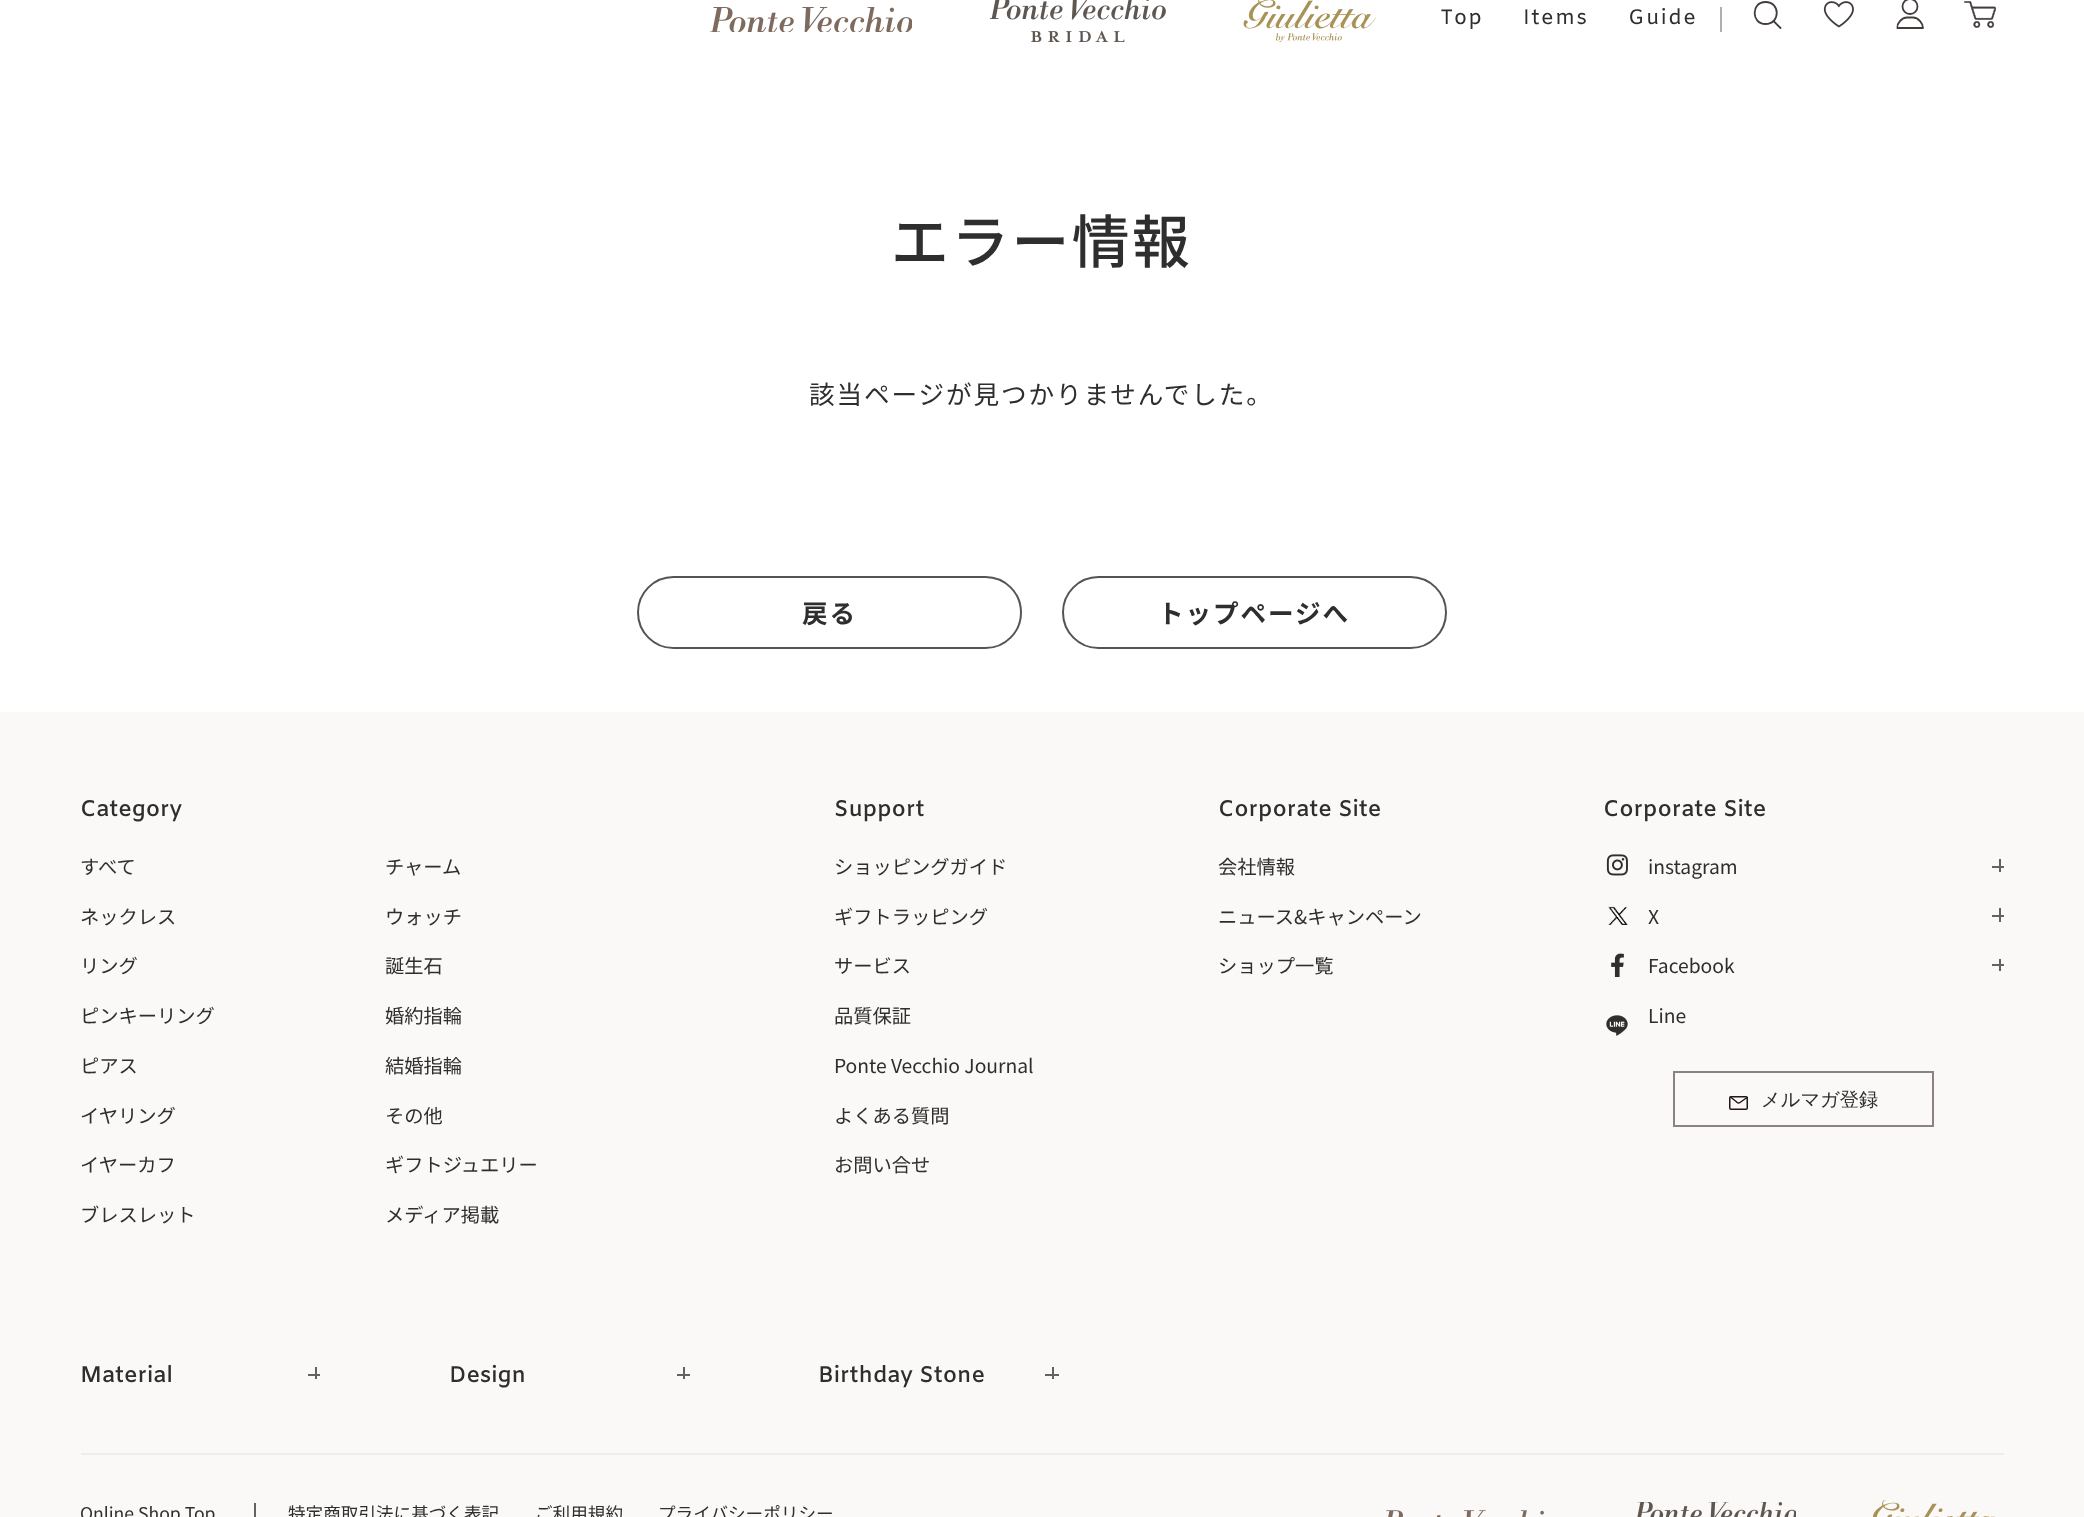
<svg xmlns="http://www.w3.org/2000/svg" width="2084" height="1517">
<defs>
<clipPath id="clip1"><path d="M1896.5-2h27.5v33.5h-27.5z"/></clipPath>
</defs>
<rect width="100%" height="100%" fill="#fff"/>
<image x="710" y="7" width="202" height="25" href="media/1.png"/>
<image x="990" y="0" width="176" height="42" href="media/2.png"/>
<image x="1243" y="0" width="133" height="42" href="media/3.png"/>
<text x="1440" y="24" style="font-family:Amiko;font-size:21px;letter-spacing:1.5px;fill:#2e2e2e">Top</text>
<text x="1523" y="24" style="font-family:Amiko;font-size:21px;letter-spacing:1.5px;fill:#2e2e2e">Items</text>
<text x="1628" y="24" style="font-family:Amiko;font-size:21px;letter-spacing:1.5px;fill:#2e2e2e">Guide</text>
<rect x="1720" y="7" width="2" height="25" fill="#afafaf"/>
<path d="M1765.5 2c15 0 15 22 0 22c-14.5 0-14.5-22 0-22z" fill="none" stroke="#433c3b" stroke-width="1.8" stroke-linecap="round"/>
<path d="M1780.5 28l-7-7" fill="none" stroke="#433c3b" stroke-width="1.8" stroke-linecap="round" stroke-linejoin="round"/>
<image x="1823" y="1" width="31" height="27" href="media/4.png"/>
<circle cx="1910" cy="6.5" r="7.5" fill="none" stroke="#433c3b" stroke-width="1.8"/>
<g clip-path="url(#clip1)">
<path d="M1923 28h-26c0-4.5 4.5-10.5 10-10.5h6c5.5 0 10 6 10 10.5z" fill="none" stroke="#433c3b" stroke-width="1.8" stroke-linecap="round" stroke-linejoin="round"/>
</g>
<image x="1964" y="1" width="33" height="27" href="media/5.png"/>
<text x="891" y="263" style="font-family:Noto Sans JP;font-size:57.75px;font-weight:500;letter-spacing:2.5px;fill:#2e2e2e">エラー情報</text>
<text x="809" y="404" style="font-family:Noto Sans JP;font-size:25.6px;letter-spacing:1.9px;fill:#2e2e2e">該当ページが見つかりませんでした。</text>
<rect x="638" y="577" width="383" height="71" rx="35.5" fill="none" stroke="#545454" stroke-width="2"/>
<text x="802" y="623" style="font-family:Noto Sans JP;font-size:25.6px;font-weight:bold;letter-spacing:1.9px;fill:#2e2e2e">戻る</text>
<rect x="1063" y="577" width="383" height="71" rx="35.5" fill="none" stroke="#545454" stroke-width="2"/>
<text x="1158" y="623" style="font-family:Noto Sans JP;font-size:25.6px;font-weight:bold;letter-spacing:1.9px;fill:#2e2e2e">トップページへ</text>
<rect y="712" width="2084" height="805" fill="#faf9f7"/>
<rect x="81" y="1453" width="1923" height="2" fill="#ededed"/>
<text x="80" y="816" style="font-family:Amiko;font-size:22.5px;font-weight:600;fill:#2e2e2e">Category</text>
<text x="80" y="874" style="font-family:Noto Sans JP;font-size:19.25px;fill:#2e2e2e">すべて</text>
<text x="80" y="924" style="font-family:Noto Sans JP;font-size:19.25px;fill:#2e2e2e">ネックレス</text>
<text x="80" y="973" style="font-family:Noto Sans JP;font-size:19.25px;fill:#2e2e2e">リング</text>
<text x="80" y="1023" style="font-family:Noto Sans JP;font-size:19.25px;fill:#2e2e2e">ピンキーリング</text>
<text x="80" y="1073" style="font-family:Noto Sans JP;font-size:19.25px;fill:#2e2e2e">ピアス</text>
<text x="80" y="1123" style="font-family:Noto Sans JP;font-size:19.25px;fill:#2e2e2e">イヤリング</text>
<text x="80" y="1172" style="font-family:Noto Sans JP;font-size:19.25px;fill:#2e2e2e">イヤーカフ</text>
<text x="80" y="1222" style="font-family:Noto Sans JP;font-size:19.25px;fill:#2e2e2e">ブレスレット</text>
<text x="385" y="874" style="font-family:Noto Sans JP;font-size:19.25px;fill:#2e2e2e">チャーム</text>
<text x="385" y="924" style="font-family:Noto Sans JP;font-size:19.25px;fill:#2e2e2e">ウォッチ</text>
<text x="385" y="973" style="font-family:Noto Sans JP;font-size:19.25px;fill:#2e2e2e">誕生石</text>
<text x="385" y="1023" style="font-family:Noto Sans JP;font-size:19.25px;fill:#2e2e2e">婚約指輪</text>
<text x="385" y="1073" style="font-family:Noto Sans JP;font-size:19.25px;fill:#2e2e2e">結婚指輪</text>
<text x="385" y="1123" style="font-family:Noto Sans JP;font-size:19.25px;fill:#2e2e2e">その他</text>
<text x="385" y="1172" style="font-family:Noto Sans JP;font-size:19.25px;fill:#2e2e2e">ギフトジュエリー</text>
<text x="385" y="1222" style="font-family:Noto Sans JP;font-size:19.25px;fill:#2e2e2e">メディア掲載</text>
<text x="834" y="816" style="font-family:Amiko;font-size:22.5px;font-weight:600;fill:#2e2e2e">Support</text>
<text x="834" y="874" style="font-family:Noto Sans JP;font-size:19.25px;fill:#2e2e2e">ショッピングガイド</text>
<text x="834" y="924" style="font-family:Noto Sans JP;font-size:19.25px;fill:#2e2e2e">ギフトラッピング</text>
<text x="834" y="973" style="font-family:Noto Sans JP;font-size:19.25px;fill:#2e2e2e">サービス</text>
<text x="834" y="1023" style="font-family:Noto Sans JP;font-size:19.25px;fill:#2e2e2e">品質保証</text>
<text x="834" y="1073" style="font-family:Noto Sans JP;font-size:19.25px;fill:#2e2e2e">Ponte Vecchio Journal</text>
<text x="834" y="1123" style="font-family:Noto Sans JP;font-size:19.25px;fill:#2e2e2e">よくある質問</text>
<text x="834" y="1172" style="font-family:Noto Sans JP;font-size:19.25px;fill:#2e2e2e">お問い合せ</text>
<text x="1218" y="816" style="font-family:Amiko;font-size:22.5px;font-weight:600;fill:#2e2e2e">Corporate Site</text>
<text x="1218" y="874" style="font-family:Noto Sans JP;font-size:19.25px;fill:#2e2e2e">会社情報</text>
<text x="1218" y="924" style="font-family:Noto Sans JP;font-size:19.25px;fill:#2e2e2e">ニュース&amp;キャンペーン</text>
<text x="1218" y="973" style="font-family:Noto Sans JP;font-size:19.25px;fill:#2e2e2e">ショップ一覧</text>
<text x="1603" y="816" style="font-family:Amiko;font-size:22.5px;font-weight:600;fill:#2e2e2e">Corporate Site</text>
<image x="1606" y="854" width="22" height="22" href="media/6.png"/>
<text x="1648" y="874" style="font-family:Noto Sans JP;font-size:19.25px;fill:#2e2e2e">instagram</text>
<rect x="1992" y="866" width="12" height="2" fill="#626262"/>
<rect x="1999" y="859" width="2" height="13" fill="#626262"/>
<image x="1608" y="906" width="20" height="19" href="media/7.png"/>
<text x="1648" y="924" style="font-family:Noto Sans JP;font-size:19.25px;fill:#2e2e2e">X</text>
<rect x="1992" y="915" width="12" height="2" fill="#626262"/>
<rect x="1999" y="908" width="2" height="14" fill="#626262"/>
<image x="1611" y="953" width="13" height="24" href="media/8.png"/>
<text x="1648" y="973" style="font-family:Noto Sans JP;font-size:19.25px;fill:#2e2e2e">Facebook</text>
<rect x="1992" y="964" width="12" height="2" fill="#626262"/>
<rect x="1999" y="959" width="2" height="12" fill="#626262"/>
<image x="1606" y="1015" width="22" height="21" href="media/9.png"/>
<text x="1648" y="1023" style="font-family:Noto Sans JP;font-size:19.25px;fill:#2e2e2e">Line</text>
<rect x="1674" y="1072" width="259" height="54" fill="none" stroke="#8d8181" stroke-width="2"/>
<rect x="1729.75" y="1096.75" width="17.5" height="12.5" rx="1.25" fill="none" stroke="#231716" stroke-width="1.5"/>
<path d="M1747 1097.5l-7 5c-2 1.5-2 .5-4.5-1.5l-5-4" fill="none" stroke="#231716" stroke-width="1.4" stroke-linecap="round" stroke-linejoin="round"/>
<text x="1761" y="1106" style="font-family:WenQuanYi Zen Hei;font-size:19.25px;font-weight:500;fill:#2e2e2e">メルマガ登録</text>
<text x="80" y="1382" style="font-family:Amiko;font-size:22.5px;font-weight:600;fill:#2e2e2e">Material</text>
<rect x="308" y="1374" width="12" height="2" fill="#626262"/>
<rect x="315" y="1367" width="2" height="12" fill="#626262"/>
<text x="449" y="1382" style="font-family:Amiko;font-size:22.5px;font-weight:600;fill:#2e2e2e">Design</text>
<rect x="677" y="1374" width="13" height="2" fill="#626262"/>
<rect x="683" y="1367" width="2" height="12" fill="#626262"/>
<text x="818" y="1382" style="font-family:Amiko;font-size:22.5px;font-weight:600;fill:#2e2e2e">Birthday Stone</text>
<rect x="1045" y="1374" width="14" height="2" fill="#626262"/>
<rect x="1052" y="1367" width="2" height="12" fill="#626262"/>
<rect x="254" y="1503" width="2" height="14" fill="#626262"/>
<text x="80" y="1520" style="font-family:Noto Sans JP;font-size:17.6px;fill:#2e2e2e">Online Shop Top</text>
<text x="288" y="1520" style="font-family:Noto Sans JP;font-size:17.6px;fill:#2e2e2e">特定商取引法に基づく表記</text>
<text x="535" y="1520" style="font-family:Noto Sans JP;font-size:17.6px;fill:#2e2e2e">ご利用規約</text>
<text x="658" y="1520" style="font-family:Noto Sans JP;font-size:17.6px;fill:#2e2e2e">プライバシーポリシー</text>
<image x="1386" y="1510" width="158" height="7" href="media/10.png"/>
<image x="1637" y="1502" width="159" height="15" href="media/11.png"/>
<image x="1872" y="1500" width="123" height="17" href="media/12.png"/>
</svg>
